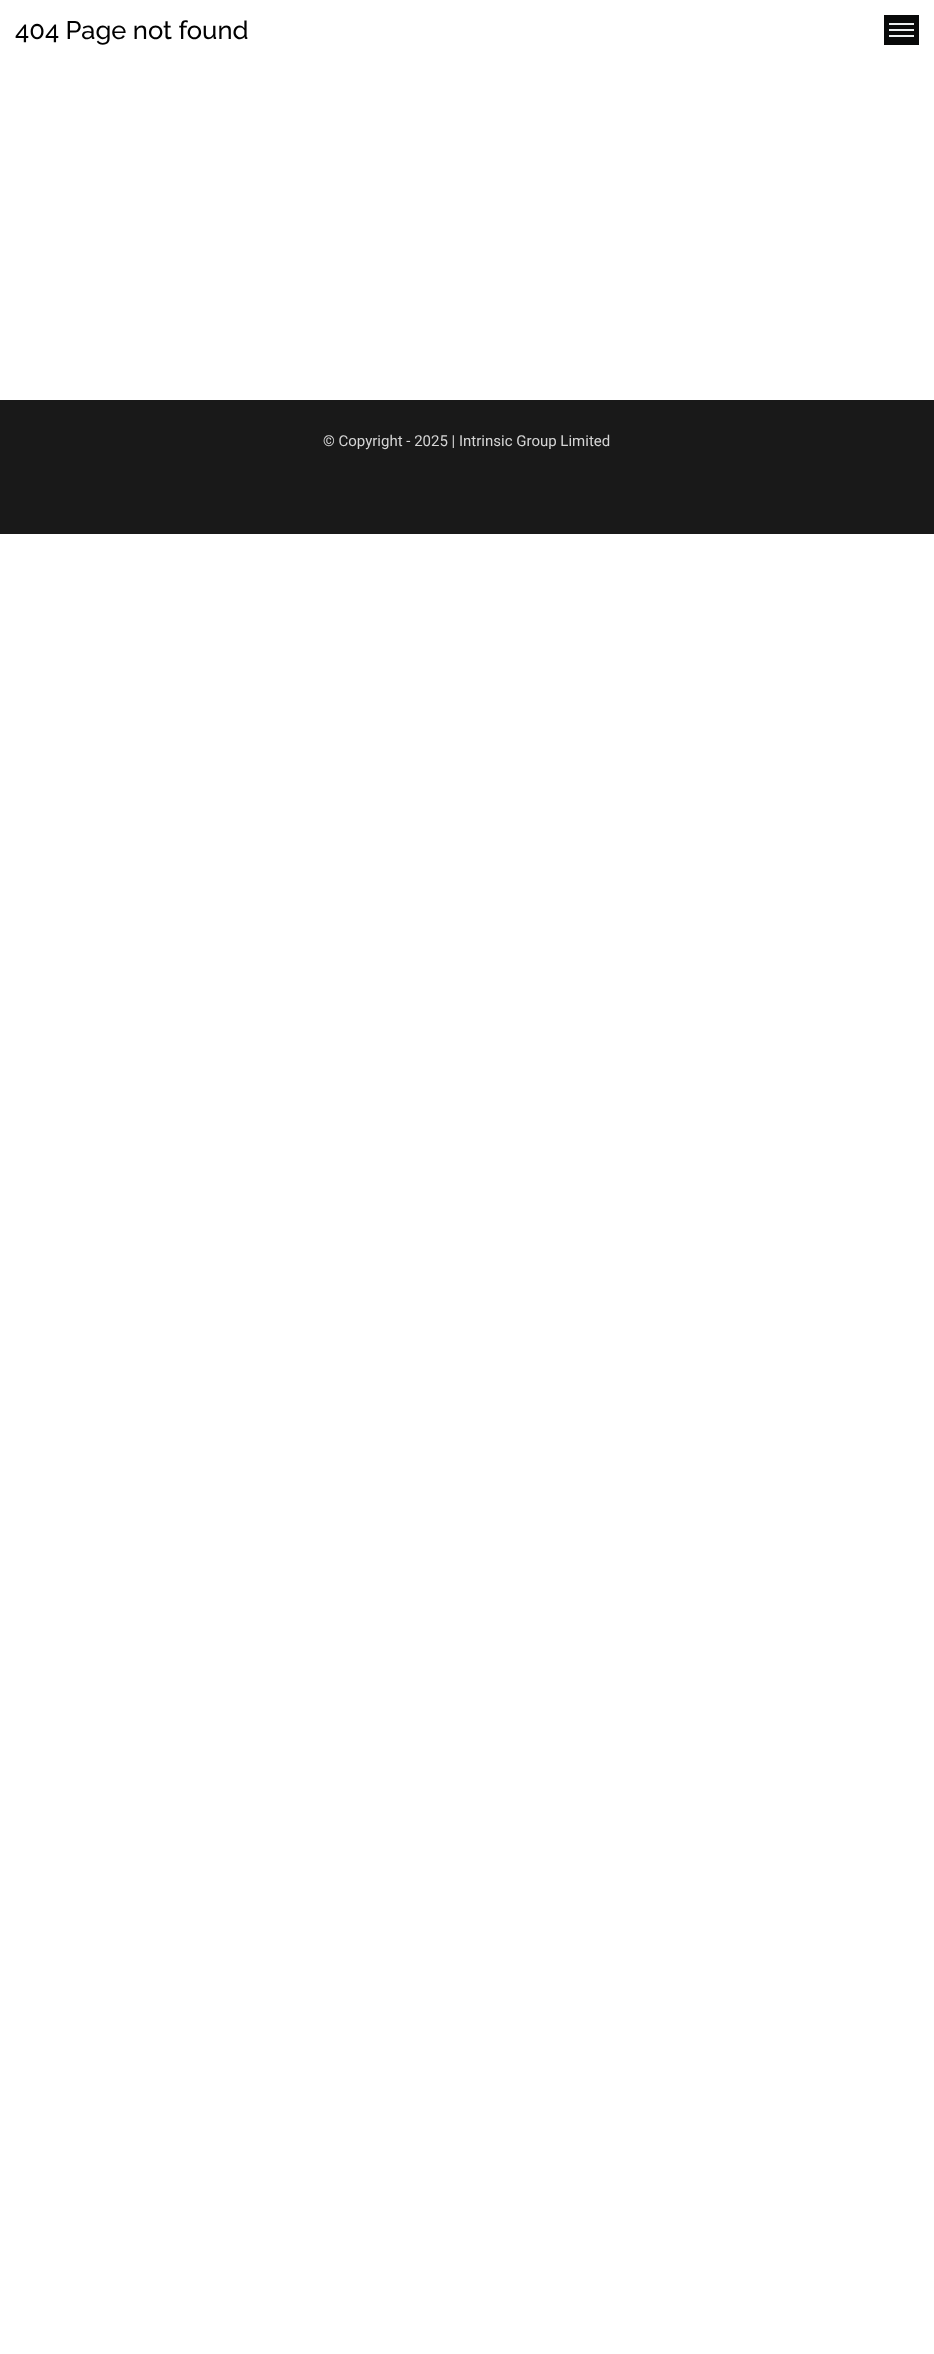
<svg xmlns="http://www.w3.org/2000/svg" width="934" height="2354">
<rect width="100%" height="100%" fill="#fff"/>
<text x="15" y="39" style="font-family:Raleway;font-size:25.5px;font-weight:500;fill:#000">404 Page not found</text>
<rect x="884" y="15" width="35" height="30" fill="#080909"/>
<rect x="889" y="23" width="25" height="2" fill="#ecf0f1"/>
<rect x="889" y="29" width="25" height="2" fill="#ecf0f1"/>
<rect x="889" y="35" width="25" height="2" fill="#ecf0f1"/>
<rect y="400" width="934" height="134" fill="#191919"/>
<text x="323" y="446" style="font-family:Roboto;font-size:15px;fill:#d5d5d5">© Copyright - 2025 | Intrinsic Group Limited</text>
</svg>
